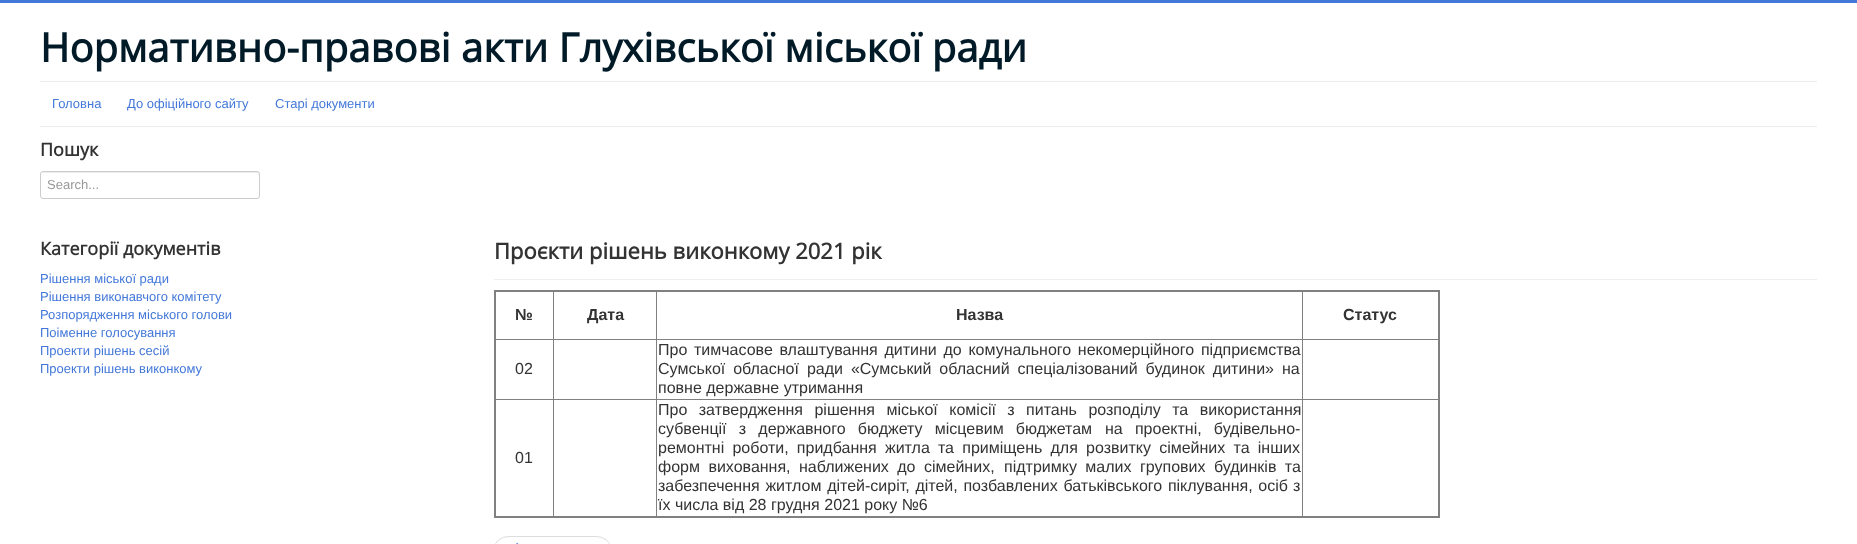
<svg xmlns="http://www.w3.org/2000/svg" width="1857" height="544">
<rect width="100%" height="100%" fill="#fff"/>
<rect width="1857" height="3" fill="#4378d9"/>
<text x="40" y="62" style="font-family:Open Sans;font-size:40px;font-weight:bold;fill:#001a27">Нормативно-правові акти Глухівської міської ради</text>
<rect x="40" y="81" width="1777" height="1" fill="#ececec"/>
<rect x="40" y="126" width="1777" height="1" fill="#ececec"/>
<text x="52" y="108" style="font-family:Liberation Sans;font-size:13px;fill:#4378d9">Головна</text>
<text x="127" y="108" style="font-family:Liberation Sans;font-size:13px;fill:#4378d9">До офіційного сайту</text>
<text x="275" y="108" style="font-family:Liberation Sans;font-size:13px;fill:#4378d9">Старі документи</text>
<text x="40" y="156" style="font-family:Open Sans;font-size:18px;font-weight:bold;fill:#333">Пошук</text>
<path d="M43 173h214c1 0 2 1 2 2c0-1 0-3-2-3h-214l-1 1l-1 2c0-1 1-2 2-2z" fill="#ececec"/>
<rect x="40.5" y="171.5" width="219" height="27" rx="2.5" fill="none" stroke="#ccc"/>
<text x="47" y="189" style="font-family:Liberation Sans;font-size:13px;fill:#999">Search...</text>
<text x="40" y="255" style="font-family:Open Sans;font-size:18px;font-weight:bold;fill:#333">Категорії документів</text>
<text x="40" y="283" style="font-family:Liberation Sans;font-size:13px;fill:#4378d9">Рішення міської ради</text>
<text x="40" y="301" style="font-family:Liberation Sans;font-size:13px;fill:#4378d9">Рішення виконавчого комітету</text>
<text x="40" y="319" style="font-family:Liberation Sans;font-size:13px;fill:#4378d9">Розпорядження міського голови</text>
<text x="40" y="337" style="font-family:Liberation Sans;font-size:13px;fill:#4378d9">Поіменне голосування</text>
<text x="40" y="355" style="font-family:Liberation Sans;font-size:13px;fill:#4378d9">Проекти рішень сесій</text>
<text x="40" y="373" style="font-family:Liberation Sans;font-size:13px;fill:#4378d9">Проекти рішень виконкому</text>
<rect x="494" y="279" width="1323" height="1" fill="#eee"/>
<text x="494" y="259" style="font-family:Open Sans;font-size:22px;font-weight:bold;fill:#333">Проєкти рішень виконкому 2021 рік</text>
<rect x="1302" y="339" width="137" height="1" fill="#808080"/>
<rect x="1302" y="399" width="137" height="1" fill="#808080"/>
<rect x="1302" y="399" width="1" height="119" fill="#808080"/>
<rect x="656" y="399" width="647" height="1" fill="#808080"/>
<rect x="1302" y="339" width="1" height="61" fill="#808080"/>
<rect x="656" y="339" width="647" height="1" fill="#808080"/>
<rect x="656" y="399" width="1" height="119" fill="#808080"/>
<rect x="553" y="399" width="104" height="1" fill="#808080"/>
<rect x="656" y="339" width="1" height="61" fill="#808080"/>
<rect x="553" y="339" width="104" height="1" fill="#808080"/>
<rect x="553" y="399" width="1" height="119" fill="#808080"/>
<rect x="494" y="399" width="60" height="1" fill="#808080"/>
<rect x="553" y="339" width="1" height="61" fill="#808080"/>
<rect x="494" y="339" width="60" height="1" fill="#808080"/>
<rect x="553" y="291" width="1" height="49" fill="#808080"/>
<rect x="656" y="291" width="1" height="49" fill="#808080"/>
<rect x="1302" y="291" width="1" height="49" fill="#808080"/>
<rect x="494" y="290" width="946" height="2" fill="#808080"/>
<rect x="1438" y="290" width="2" height="228" fill="#808080"/>
<rect x="494" y="516" width="946" height="2" fill="#808080"/>
<rect x="494" y="290" width="2" height="228" fill="#808080"/>
<text x="515" y="320" style="font-family:Liberation Sans;font-size:16px;font-weight:bold;fill:#333">№</text>
<text x="587" y="320" style="font-family:Liberation Sans;font-size:16px;font-weight:bold;fill:#333">Дата</text>
<text x="956" y="320" style="font-family:Liberation Sans;font-size:16px;font-weight:bold;fill:#333">Назва</text>
<text x="1343" y="320" style="font-family:Liberation Sans;font-size:16px;font-weight:bold;fill:#333">Статус</text>
<text x="515" y="374" style="font-family:Liberation Sans;font-size:16px;fill:#333">02</text>
<text x="658" y="355" word-spacing="2.25" style="font-family:Liberation Sans;font-size:16px;fill:#333">Про тимчасове влаштування дитини до комунального некомерційного підприємства</text>
<text x="658" y="374" word-spacing="3.5" style="font-family:Liberation Sans;font-size:16px;fill:#333">Сумської обласної ради «Сумський обласний спеціалізований будинок дитини» на</text>
<text x="658" y="393" style="font-family:Liberation Sans;font-size:16px;fill:#333">повне державне утримання</text>
<text x="515" y="463" style="font-family:Liberation Sans;font-size:16px;fill:#333">01</text>
<text x="658" y="415" word-spacing="7" style="font-family:Liberation Sans;font-size:16px;fill:#333">Про затвердження рішення міської комісії з питань розподілу та використання</text>
<text x="658" y="434" word-spacing="7.75" style="font-family:Liberation Sans;font-size:16px;fill:#333">субвенції з державного бюджету місцевим бюджетам</text>
<text x="1105" y="434" word-spacing="7.75" style="font-family:Liberation Sans;font-size:16px;fill:#333">на проектні, будівельно-</text>
<text x="658" y="453" word-spacing="3.75" style="font-family:Liberation Sans;font-size:16px;fill:#333">ремонтні роботи, придбання житла та приміщень для розвитку сімейних та інших</text>
<text x="658" y="472" word-spacing="4" style="font-family:Liberation Sans;font-size:16px;fill:#333">форм виховання, наближених до сімейних,</text>
<text x="1004" y="472" word-spacing="4" style="font-family:Liberation Sans;font-size:16px;fill:#333">підтримку малих групових будинків та</text>
<text x="658" y="491" word-spacing="1.25" style="font-family:Liberation Sans;font-size:16px;fill:#333">забезпечення житлом дітей-сиріт, дітей, позбавлених батьківського піклування, осіб</text>
<text x="1293" y="491" style="font-family:Liberation Sans;font-size:16px;fill:#333">з</text>
<text x="658" y="510" style="font-family:Liberation Sans;font-size:16px;fill:#333">їх числа від 28 грудня 2021 року №6</text>
<rect x="494.5" y="536.5" width="116" height="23" rx="14.5" fill="none" stroke="#ddd"/>
<image x="516" y="542" width="3" height="2" href="media/1.png"/>
</svg>
